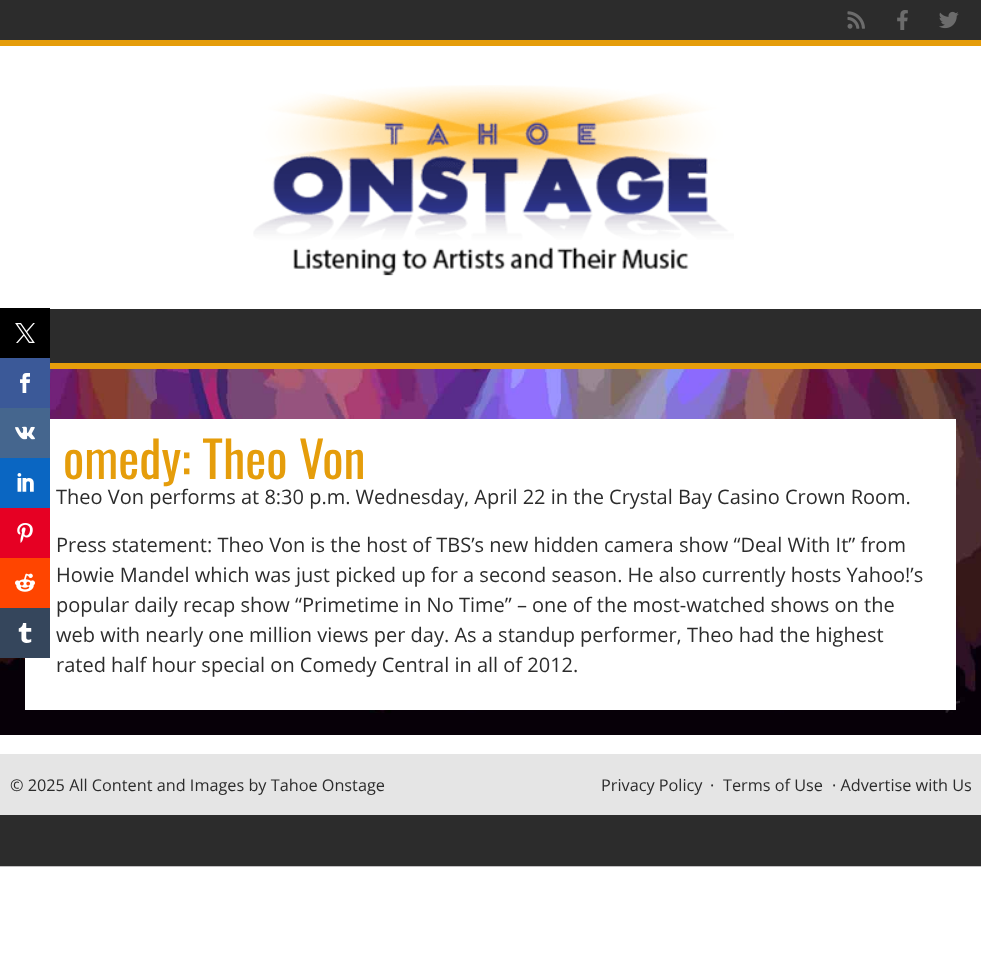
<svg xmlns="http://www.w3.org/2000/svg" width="981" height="974">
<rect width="100%" height="100%" fill="#fff"/>
<image x="0" y="369" width="981" height="498" href="media/1.png"/>
<rect width="981" height="40" fill="#2c2c2c"/>
<rect y="40" width="981" height="6" fill="#e59d0b"/>
<image x="847" y="11" width="18" height="18" href="media/2.png"/>
<image x="897" y="10" width="11" height="20" href="media/3.png"/>
<image x="939" y="11" width="20" height="18" href="media/4.png"/>
<image x="253" y="85" width="481" height="191" href="media/5.png"/>
<rect x="50" y="309" width="931" height="54" fill="#2c2c2c"/>
<rect x="50" y="363" width="931" height="6" fill="#e59d0b"/>
<rect y="308" width="50" height="50" fill="#000"/>
<image x="15" y="323" width="20" height="20" href="media/6.png"/>
<rect y="358" width="50" height="50" fill="#3b5998"/>
<image x="20" y="373" width="10" height="20" href="media/7.png"/>
<rect x="25" y="419" width="931" height="291" fill="#fff"/>
<rect y="408" width="50" height="50" fill="#45668e"/>
<image x="15" y="426" width="20" height="14" href="media/8.png"/>
<rect y="458" width="50" height="50" fill="#0a66c2"/>
<image x="17" y="473" width="17" height="19" href="media/9.png"/>
<rect y="508" width="50" height="50" fill="#e60023"/>
<image x="17" y="523" width="16" height="20" href="media/10.png"/>
<rect y="558" width="50" height="50" fill="#ff4500"/>
<image x="15" y="573" width="20" height="19" href="media/11.png"/>
<rect y="608" width="50" height="50" fill="#35465c"/>
<image x="18" y="623" width="14" height="20" href="media/12.png"/>
<text x="63" y="479" style="font-family:Oswald;font-size:50px;fill:#e59d0b">omedy: Theo Von</text>
<text x="56" y="504" style="font-family:Open Sans;font-size:20px;fill:#2c2c2c">Theo Von performs at 8:30 p.m. Wednesday, April 22 in the Crystal Bay Casino Crown Room.</text>
<text x="56" y="552" style="font-family:Open Sans;font-size:20px;fill:#2c2c2c">Press statement: Theo Von is the host of TBS’s new hidden camera show “Deal With It” from</text>
<text x="56" y="582" style="font-family:Open Sans;font-size:20px;fill:#2c2c2c">Howie Mandel which was just picked up for a second season. He also currently hosts Yahoo!’s</text>
<text x="56" y="612" style="font-family:Open Sans;font-size:20px;fill:#2c2c2c">popular daily recap show “Primetime in No Time” – one of the most-watched shows on the</text>
<text x="56" y="642" style="font-family:Open Sans;font-size:20px;fill:#2c2c2c">web with nearly one million views per day. As a standup performer, Theo had the highest</text>
<text x="56" y="672" style="font-family:Open Sans;font-size:20px;fill:#2c2c2c">rated half hour special on Comedy Central in all of 2012.</text>
<rect y="735" width="981" height="19" fill="#fff"/>
<rect y="754" width="981" height="61" fill="#e5e5e5"/>
<text x="10" y="791" style="font-family:Open Sans;font-size:16.25px;fill:#2c2c2c">© 2025 All Content and Images by Tahoe Onstage</text>
<text x="601" y="791" style="font-family:Open Sans;font-size:16.25px;fill:#2c2c2c">Privacy Policy</text>
<text x="710" y="791" style="font-family:Open Sans;font-size:16.25px;fill:#2c2c2c">·</text>
<text x="723" y="791" style="font-family:Open Sans;font-size:16.25px;fill:#2c2c2c">Terms of Use</text>
<text x="832" y="791" style="font-family:Open Sans;font-size:16.25px;fill:#2c2c2c">· Advertise with Us</text>
<rect y="815" width="981" height="51" fill="#2c2c2c"/>
</svg>
